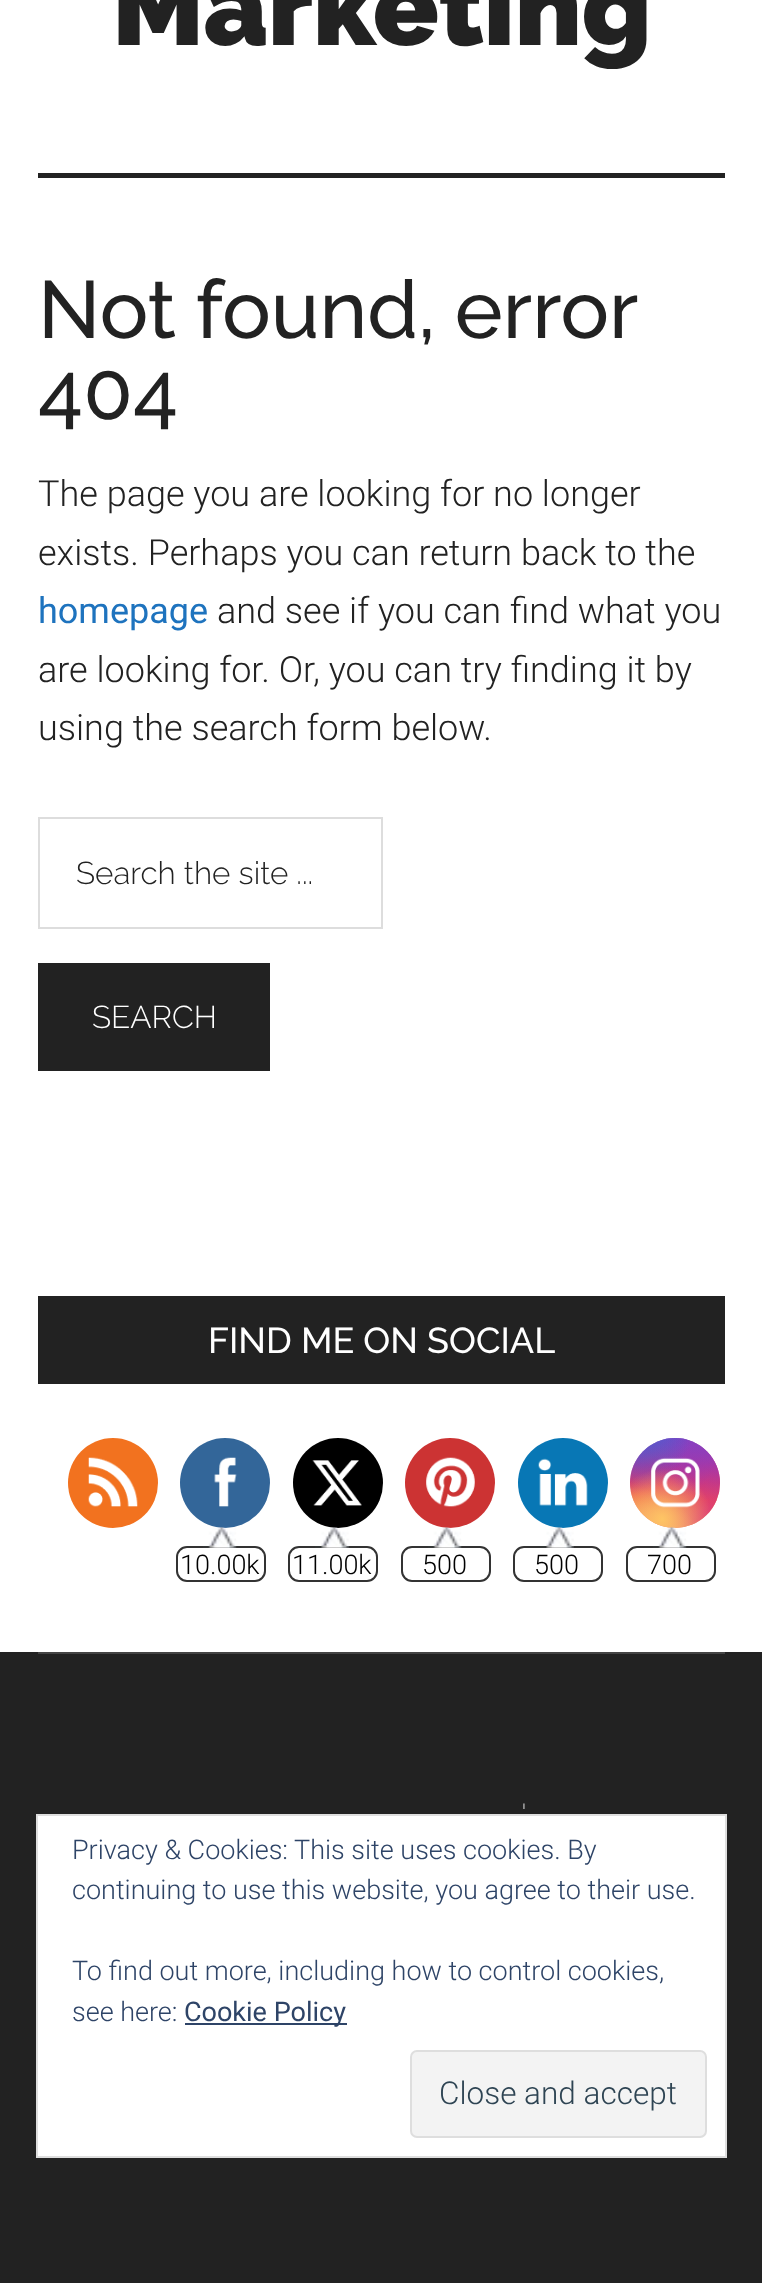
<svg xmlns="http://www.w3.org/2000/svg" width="762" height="2283">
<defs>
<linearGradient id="g1" gradientUnits="userSpaceOnUse" x1="675" y1="1438" x2="675" y2="1528"><stop offset="0" stop-color="#6559ca"/><stop offset="0.3" stop-color="#bc318f"/><stop offset="0.5" stop-color="#e33f5f"/><stop offset="0.7" stop-color="#f77638"/><stop offset="1" stop-color="#fec66d"/></linearGradient>
<radialGradient id="g2" gradientUnits="userSpaceOnUse" cx="720" cy="1528" r="127"><stop offset="0" stop-color="#d9317a"/><stop offset="1" stop-color="#d9317a" stop-opacity="0"/></radialGradient>
<radialGradient id="g3" gradientUnits="userSpaceOnUse" cx="0" cy="0" r="1" gradientTransform="matrix(76 0 0 153 684 1420)"><stop offset="0" stop-color="#893dc2"/><stop offset="0.5" stop-color="#893dc2" stop-opacity="0"/></radialGradient>
<radialGradient id="g4" gradientUnits="userSpaceOnUse" cx="720" cy="1438" r="127"><stop offset="0" stop-color="#893dc2"/><stop offset="0.5" stop-color="#893dc2" stop-opacity="0"/></radialGradient>
<radialGradient id="g5" gradientUnits="userSpaceOnUse" cx="0" cy="0" r="1" gradientTransform="matrix(102 0 0 191 648 1393)"><stop offset="0" stop-color="#5258cf"/><stop offset="0.5" stop-color="#5258cf" stop-opacity="0"/></radialGradient>
<radialGradient id="g6" gradientUnits="userSpaceOnUse" cx="0" cy="0" r="1" gradientTransform="matrix(127 0 0 159 630 1415)"><stop offset="0" stop-color="#5258cf"/><stop offset="0.5" stop-color="#5258cf" stop-opacity="0"/></radialGradient>
<radialGradient id="g7" gradientUnits="userSpaceOnUse" cx="630" cy="1564" r="155"><stop offset="0" stop-color="#fec564"/><stop offset="0.5" stop-color="#fec564" stop-opacity="0"/></radialGradient>
<radialGradient id="g8" gradientUnits="userSpaceOnUse" cx="662" cy="1519" r="100"><stop offset="0" stop-color="#fec564"/><stop offset="0.5" stop-color="#fec564" stop-opacity="0"/></radialGradient>
</defs>
<rect width="100%" height="100%" fill="#fff"/>
<rect x="38" y="173" width="687" height="5" fill="#222"/>
<text x="112" y="45" style="font-family:Raleway;font-size:108px;font-weight:900;fill:#222">Marketing</text>
<text x="38" y="338" word-spacing="-1" style="font-family:Raleway;font-size:81px;font-weight:500;fill:#222">Not found, error</text>
<text x="38" y="419" style="font-family:Raleway;font-size:81px;font-weight:500;fill:#222">404</text>
<text x="38" y="506" style="font-family:Roboto;font-size:36px;font-weight:300;fill:#222">The page you are looking for no longer</text>
<text x="38" y="565" style="font-family:Roboto;font-size:36px;font-weight:300;fill:#222">exists. Perhaps you can return back to the</text>
<text x="38" y="623" style="font-family:Roboto;font-size:36px;fill:#1e73be">homepage</text>
<text x="217" y="623" style="font-family:Roboto;font-size:36px;font-weight:300;fill:#222">and see if you can find what you</text>
<text x="38" y="682" style="font-family:Roboto;font-size:36px;font-weight:300;fill:#222">are looking for. Or, you can try finding it by</text>
<text x="38" y="740" style="font-family:Roboto;font-size:36px;font-weight:300;fill:#222">using the search form below.</text>
<rect x="39" y="818" width="343" height="110" fill="none" stroke="#ddd" stroke-width="2"/>
<text x="76" y="884" style="font-family:Raleway;font-size:31.5px;font-weight:300;fill:#222">Search the site ...</text>
<rect x="38" y="963" width="232" height="108" fill="#222"/>
<text x="92" y="1028" style="font-family:Raleway;font-size:31.5px;font-weight:300;fill:#fff">SEARCH</text>
<rect x="38" y="1296" width="687" height="88" fill="#222"/>
<text x="208" y="1353" style="font-family:Raleway;font-size:36px;font-weight:500;fill:#fff">FIND ME ON SOCIAL</text>
<circle cx="113" cy="1483" r="45" fill="#f2721f"/>
<image x="88" y="1457" width="50" height="50" href="media/1.png"/>
<circle cx="225" cy="1483" r="45" fill="#369"/>
<image x="214" y="1457" width="23" height="50" href="media/2.png"/>
<rect x="177" y="1547" width="88" height="34" rx="10" fill="none" stroke="#333" stroke-width="2"/>
<image x="203" y="1527" width="34" height="21" href="media/3.png"/>
<text x="180" y="1574" style="font-family:Roboto;font-size:27px;font-weight:300;fill:#000">10.00k</text>
<circle cx="338" cy="1483" r="45" fill="#000"/>
<image x="312" y="1460" width="50" height="46" href="media/4.png"/>
<rect x="289" y="1547" width="88" height="34" rx="10" fill="none" stroke="#333" stroke-width="2"/>
<image x="315" y="1527" width="34" height="21" href="media/5.png"/>
<text x="292" y="1574" style="font-family:Roboto;font-size:27px;font-weight:300;fill:#000">11.00k</text>
<circle cx="450" cy="1483" r="45" fill="#c33"/>
<image x="426" y="1457" width="49" height="50" href="media/6.png"/>
<rect x="402" y="1547" width="88" height="34" rx="10" fill="none" stroke="#333" stroke-width="2"/>
<image x="428" y="1527" width="34" height="21" href="media/7.png"/>
<text x="422" y="1574" style="font-family:Roboto;font-size:27px;font-weight:300;fill:#000">500</text>
<circle cx="563" cy="1483" r="45" fill="#0877b5"/>
<image x="538" y="1458" width="50" height="48" href="media/8.png"/>
<rect x="514" y="1547" width="88" height="34" rx="10" fill="none" stroke="#333" stroke-width="2"/>
<image x="540" y="1527" width="34" height="21" href="media/9.png"/>
<text x="534" y="1574" style="font-family:Roboto;font-size:27px;font-weight:300;fill:#000">500</text>
<circle cx="675" cy="1483" r="45" fill="url(#g1)"/>
<circle cx="675" cy="1483" r="45" fill="url(#g2)"/>
<circle cx="675" cy="1483" r="45" fill="url(#g3)"/>
<circle cx="675" cy="1483" r="45" fill="url(#g4)"/>
<circle cx="675" cy="1483" r="45" fill="url(#g5)"/>
<circle cx="675" cy="1483" r="45" fill="url(#g6)"/>
<circle cx="675" cy="1483" r="45" fill="url(#g7)"/>
<circle cx="675" cy="1483" r="45" fill="url(#g8)"/>
<image x="651" y="1457" width="49" height="51" href="media/10.png"/>
<rect x="627" y="1547" width="88" height="34" rx="10" fill="none" stroke="#333" stroke-width="2"/>
<image x="653" y="1527" width="34" height="21" href="media/11.png"/>
<text x="647" y="1574" style="font-family:Roboto;font-size:27px;font-weight:300;fill:#000">700</text>
<rect y="1652" width="762" height="631" fill="#222"/>
<rect x="37" y="1815" width="689" height="342" fill="#fff" stroke="#dedede" stroke-width="2"/>
<text x="72" y="1859" style="font-family:Roboto;font-size:27px;font-weight:300;fill:#2e4467">Privacy &amp; Cookies: This site uses cookies. By</text>
<text x="72" y="1899" style="font-family:Roboto;font-size:27px;font-weight:300;fill:#2e4467">continuing to use this website, you agree to their use.</text>
<text x="72" y="1980" style="font-family:Roboto;font-size:27px;font-weight:300;fill:#2e4467">To find out more, including how to control cookies,</text>
<text x="72" y="2021" style="font-family:Roboto;font-size:27px;font-weight:300;fill:#2e4467">see here:</text>
<rect x="185" y="2023" width="162" height="2" fill="#2e4467"/>
<text x="184" y="2021" style="font-family:Roboto;font-size:27px;fill:#2e4467">Cookie Policy</text>
<rect x="411" y="2051" width="295" height="86" rx="6" fill="#f3f3f3" stroke="#dedede" stroke-width="2"/>
<text x="439" y="2104" style="font-family:Roboto;font-size:31.5px;font-weight:300;fill:#2e4453">Close and accept</text>
<rect x="38" y="1652" width="687" height="2" fill="#444"/>
<text x="521" y="1826" style="font-family:Raleway;font-size:31.5px;font-weight:300;fill:#aaa">'</text>
</svg>
